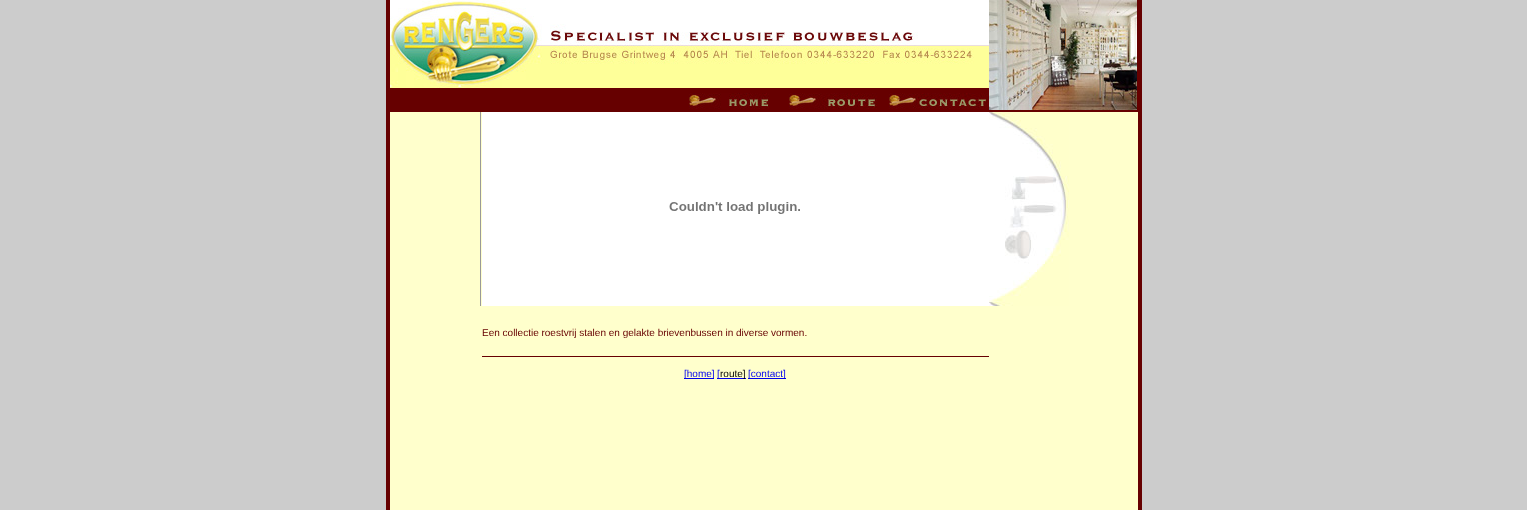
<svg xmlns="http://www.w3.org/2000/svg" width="1527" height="510">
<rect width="100%" height="100%" fill="#ccc"/>
<rect x="386" width="4" height="510" fill="#600"/>
<rect x="390" y="88" width="599" height="24" fill="#600"/>
<image x="390" y="0" width="599" height="88" href="media/1.png"/>
<rect x="989" width="153" height="112" fill="#600"/>
<image x="989" y="0" width="148" height="110" href="media/2.png"/>
<image x="689" y="93" width="80" height="16" href="media/3.png"/>
<image x="789" y="93" width="88" height="16" href="media/4.png"/>
<image x="889" y="93" width="99" height="16" href="media/5.png"/>
<image x="390" y="112" width="92" height="194" href="media/6.png"/>
<rect x="482" y="112" width="507" height="194" fill="#fff"/>
<image x="669" y="202" width="131" height="12" href="media/7.png"/>
<rect x="1069" y="112" width="69" height="194" fill="#ffc"/>
<image x="989" y="112" width="80" height="194" href="media/8.png"/>
<rect x="1138" y="112" width="4" height="398" fill="#600"/>
<rect x="390" y="306" width="599" height="39" fill="#ffc"/>
<rect x="989" y="306" width="149" height="204" fill="#ffc"/>
<text x="482" y="336" style="font-family:Liberation Sans;font-size:10px;fill:#600">Een collectie roestvrij stalen en gelakte brievenbussen in diverse vormen.</text>
<rect x="390" y="345" width="599" height="165" fill="#ffc"/>
<rect x="482" y="356" width="507" height="1" fill="#670001"/>
<rect x="684" y="378" width="30" height="1" fill="#00e"/>
<text x="684" y="377" style="font-family:Liberation Sans;font-size:10px;fill:#00e">[home]</text>
<rect x="717" y="378" width="29" height="1" fill="#00e"/>
<text x="717" y="377" style="font-family:Liberation Sans;font-size:10px;fill:#00e">[</text>
<text x="720" y="377" style="font-family:Liberation Sans;font-size:10px;fill:#000">route]</text>
<rect x="748" y="378" width="38" height="1" fill="#00e"/>
<text x="748" y="377" style="font-family:Liberation Sans;font-size:10px;fill:#00e">[contact]</text>
</svg>
